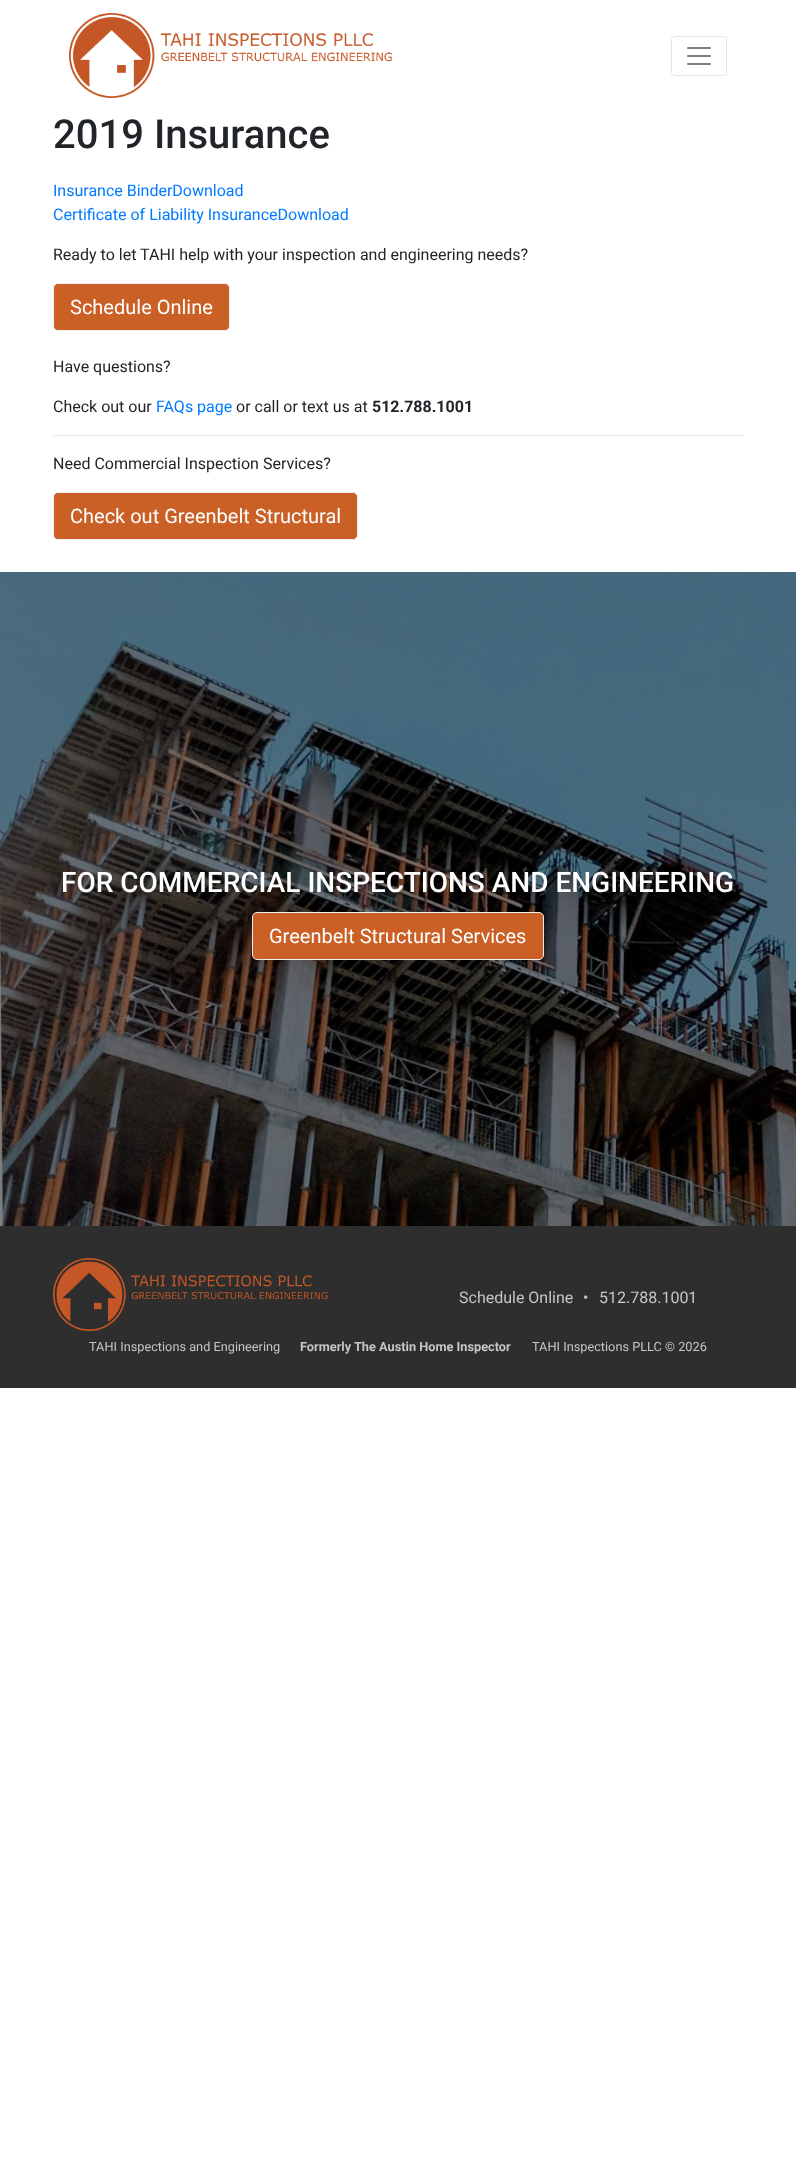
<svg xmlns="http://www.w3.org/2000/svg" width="796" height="2181">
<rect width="100%" height="100%" fill="#fff"/>
<image x="69" y="13" width="323" height="85" href="media/1.png"/>
<rect x="671.5" y="36.5" width="55" height="39" rx="3.5" fill="none" stroke="#e6e6e6"/>
<image x="687" y="47" width="24" height="18" href="media/2.png"/>
<text x="53" y="148" style="font-family:Roboto;font-size:40px;font-weight:500;fill:#212529">2019 Insurance</text>
<text x="53" y="196" style="font-family:Roboto;font-size:16px;fill:#007bff">Insurance BinderDownload</text>
<text x="53" y="220" style="font-family:Roboto;font-size:16px;fill:#007bff">Certificate of Liability InsuranceDownload</text>
<text x="53" y="260" style="font-family:Roboto;font-size:16px;fill:#212529">Ready to let TAHI help with your inspection and engineering needs?</text>
<rect x="53.5" y="283.5" width="176" height="47" rx="4.5" fill="#ca6025" stroke="#eee"/>
<text x="70" y="314" style="font-family:Roboto;font-size:20px;fill:#fff">Schedule Online</text>
<text x="53" y="372" style="font-family:Roboto;font-size:16px;fill:#212529">Have questions?</text>
<text x="53" y="412" style="font-family:Roboto;font-size:16px;fill:#212529">Check out our</text>
<text x="156" y="412" style="font-family:Roboto;font-size:16px;fill:#007bff">FAQs page</text>
<text x="236" y="412" style="font-family:Roboto;font-size:16px;fill:#212529">or call or text us at</text>
<text x="372" y="412" style="font-family:Roboto;font-size:16px;font-weight:bold;fill:#212529">512.788.1001</text>
<rect x="53" y="435" width="690" height="1" fill="#e6e6e6"/>
<text x="53" y="469" style="font-family:Roboto;font-size:16px;fill:#212529">Need Commercial Inspection Services?</text>
<rect x="53.5" y="492.5" width="304" height="47" rx="4.5" fill="#ca6025" stroke="#eee"/>
<text x="70" y="523" style="font-family:Roboto;font-size:20px;fill:#fff">Check out Greenbelt Structural</text>
<image x="0" y="572" width="796" height="654" href="media/3.png"/>
<text x="61" y="892" style="font-family:Roboto;font-size:28px;font-weight:500;fill:#fff">FOR COMMERCIAL INSPECTIONS AND ENGINEERING</text>
<rect x="252.5" y="912.5" width="291" height="47" rx="4.5" fill="#ca6025" stroke="#eee"/>
<text x="269" y="943" style="font-family:Roboto;font-size:20px;fill:#fff">Greenbelt Structural Services</text>
<rect y="1226" width="796" height="162" fill="#2e2e2e"/>
<image x="53" y="1258" width="275" height="73" href="media/4.png"/>
<text x="459" y="1303" style="font-family:Roboto;font-size:16px;fill:#c6c6c6">Schedule Online</text>
<text x="583" y="1303" style="font-family:Roboto;font-size:16px;fill:#c6c6c6">•</text>
<text x="599" y="1303" style="font-family:Roboto;font-size:16px;fill:#c6c6c6">512.788.1001</text>
<text x="89" y="1351" style="font-family:Roboto;font-size:12.75px;fill:#c6c6c6">TAHI Inspections and Engineering</text>
<text x="300" y="1351" style="font-family:Roboto;font-size:12.75px;font-weight:bold;fill:#c6c6c6">Formerly The Austin Home Inspector</text>
<text x="532" y="1351" style="font-family:Roboto;font-size:12.75px;fill:#c6c6c6">TAHI Inspections PLLC © 2026</text>
</svg>
